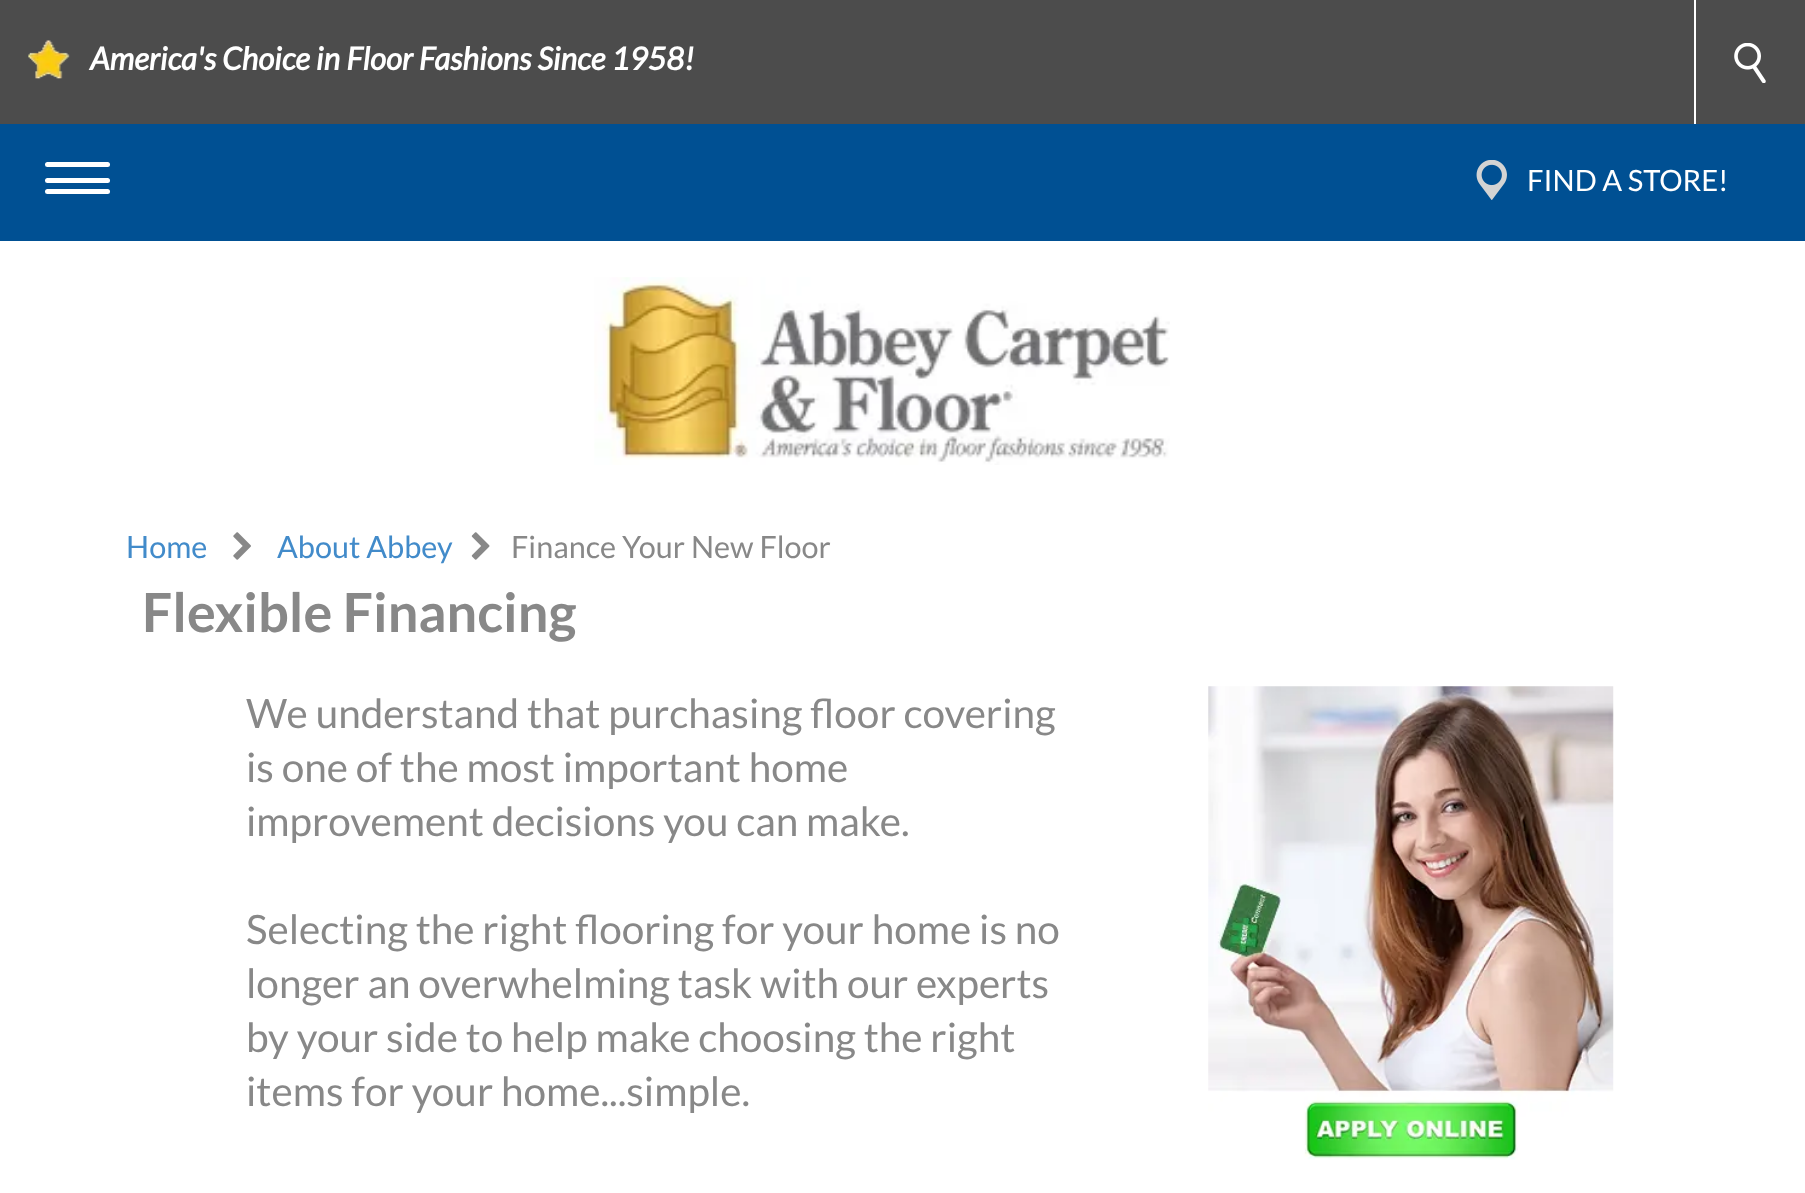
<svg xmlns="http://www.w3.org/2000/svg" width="1805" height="1193">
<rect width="100%" height="100%" fill="#fff"/>
<rect width="1805" height="124" fill="#4c4c4c"/>
<image x="28" y="40" width="42" height="39" href="media/1.png"/>
<text x="90" y="70" style="font-family:Lato;font-size:31.5px;font-weight:bold;font-style:italic;fill:#fff">America's Choice in Floor Fashions Since 1958!</text>
<rect y="124" width="1805" height="117" fill="#005093"/>
<rect x="45" y="162" width="65" height="5" rx="2.5" fill="#fff"/>
<rect x="74" y="178" width="36" height="5" rx="2.5" fill="#fff"/>
<rect x="45" y="178" width="36" height="5" rx="2.5" fill="#fff"/>
<rect x="45" y="189" width="65" height="5" rx="2.5" fill="#fff"/>
<rect x="1694" width="2" height="124" fill="#fff"/>
<image x="1734" y="43" width="32" height="40" href="media/2.png"/>
<image x="1476" y="160" width="31" height="40" href="media/3.png"/>
<text x="1527" y="191" style="font-family:Lato;font-size:29.25px;fill:#fff">FIND A STORE!</text>
<image x="594" y="277" width="576" height="188" href="media/4.png"/>
<text x="126" y="558" style="font-family:Lato;font-size:30.6px;fill:#428bca">Home</text>
<image x="233" y="532" width="18" height="28" href="media/5.png"/>
<text x="277" y="558" style="font-family:Lato;font-size:30.6px;fill:#428bca">About Abbey</text>
<image x="471" y="532" width="19" height="28" href="media/6.png"/>
<text x="511" y="558" style="font-family:Lato;font-size:30.6px;fill:#888">Finance Your New Floor</text>
<text x="142" y="632" style="font-family:Lato;font-size:54px;font-weight:bold;fill:#888">Flexible Financing</text>
<text x="246" y="728" style="font-family:Lato;font-size:40.5px;fill:#888">We understand that purchasing floor covering</text>
<text x="246" y="782" style="font-family:Lato;font-size:40.5px;fill:#888">is one of the most important home</text>
<text x="246" y="836" style="font-family:Lato;font-size:40.5px;fill:#888">improvement decisions you can make.</text>
<text x="246" y="944" style="font-family:Lato;font-size:40.5px;fill:#888">Selecting the right flooring for your home is no</text>
<text x="246" y="998" style="font-family:Lato;font-size:40.5px;fill:#888">longer an overwhelming task with our experts</text>
<text x="246" y="1052" style="font-family:Lato;font-size:40.5px;fill:#888">by your side to help make choosing the right</text>
<text x="246" y="1106" style="font-family:Lato;font-size:40.5px;fill:#888">items for your home...simple.</text>
<image x="1208" y="686" width="406" height="474" href="media/7.png"/>
</svg>
